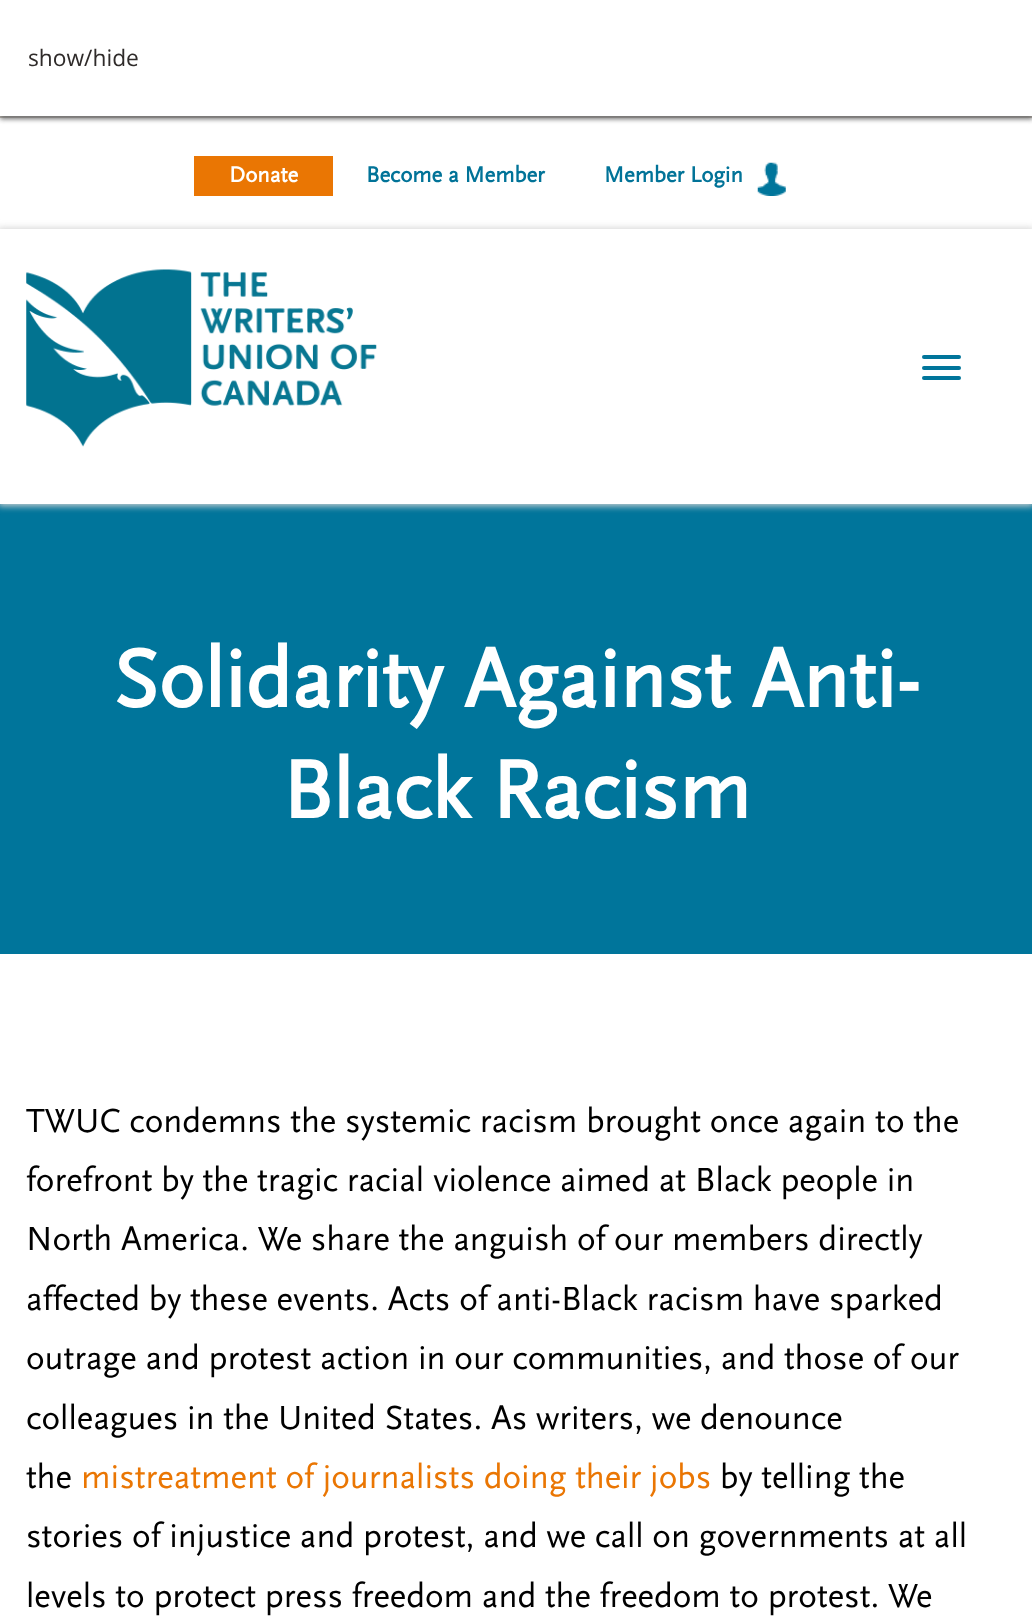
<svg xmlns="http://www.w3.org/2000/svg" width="1032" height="1621">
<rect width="100%" height="100%" fill="#fff"/>
<rect y="116" width="1032" height="2" fill="#bcb5ad"/>
<rect y="4" width="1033" height="115" fill="#6f6f6f" filter="blur(2.5px)"/>
<rect width="1032" height="116" fill="#fff"/>
<text x="28" y="66" style="font-family:Open Sans;font-size:22.75px;fill:#2f2b2a">show/hide</text>
<rect x="194" y="156" width="139" height="40" fill="#ea7603"/>
<text x="229" y="182" style="font-family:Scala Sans;font-size:22.75px;font-weight:bold;fill:#fff">Donate</text>
<text x="366" y="182" style="font-family:Scala Sans;font-size:22.75px;font-weight:bold;fill:#017398">Become a Member</text>
<text x="604" y="182" style="font-family:Scala Sans;font-size:22.75px;font-weight:bold;fill:#017398">Member Login</text>
<image x="757" y="162" width="29" height="34" href="media/1.png"/>
<rect y="504" width="1032" height="450" fill="#00759b"/>
<rect x="-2" y="228" width="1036" height="278" fill="#d4d4d4" filter="blur(3.5px)"/>
<rect y="229" width="1032" height="275" fill="#fff"/>
<image x="26" y="269" width="351" height="178" href="media/2.png"/>
<rect x="922" y="355" width="39" height="4" rx="2" fill="#00759b"/>
<rect x="922" y="366" width="39" height="4" rx="2" fill="#00759b"/>
<rect x="922" y="376" width="39" height="4" rx="2" fill="#00759b"/>
<text x="113" y="707" style="font-family:Scala Sans;font-size:85.25px;font-weight:bold;fill:#fff">Solidarity Against Anti-</text>
<text x="282" y="818" style="font-family:Scala Sans;font-size:85.25px;font-weight:bold;fill:#fff">Black Racism</text>
<text x="26" y="1132" style="font-family:Scala Sans;font-size:34.9px;fill:#000">TWUC condemns the systemic racism brought once again to the</text>
<text x="26" y="1191" style="font-family:Scala Sans;font-size:34.9px;fill:#000">forefront by the tragic racial violence aimed at Black people in</text>
<text x="26" y="1250" style="font-family:Scala Sans;font-size:34.9px;fill:#000">North America. We share the anguish of our members directly</text>
<text x="26" y="1310" style="font-family:Scala Sans;font-size:34.9px;fill:#000">affected by these events. Acts of anti-Black racism have sparked</text>
<text x="26" y="1369" style="font-family:Scala Sans;font-size:34.9px;fill:#000">outrage and protest action in our communities, and those of our</text>
<text x="26" y="1429" style="font-family:Scala Sans;font-size:34.9px;fill:#000">colleagues in the United States. As writers, we denounce</text>
<text x="26" y="1488" style="font-family:Scala Sans;font-size:34.9px;fill:#000">the</text>
<text x="81" y="1488" style="font-family:Scala Sans;font-size:34.9px;fill:#ea7603">mistreatment of journalists doing their jobs</text>
<text x="720" y="1488" style="font-family:Scala Sans;font-size:34.9px;fill:#000">by telling the</text>
<text x="26" y="1547" style="font-family:Scala Sans;font-size:34.9px;fill:#000">stories of injustice and protest, and we call on governments at all</text>
<text x="26" y="1607" style="font-family:Scala Sans;font-size:34.9px;fill:#000">levels to protect press freedom and the freedom to protest. We</text>
</svg>
